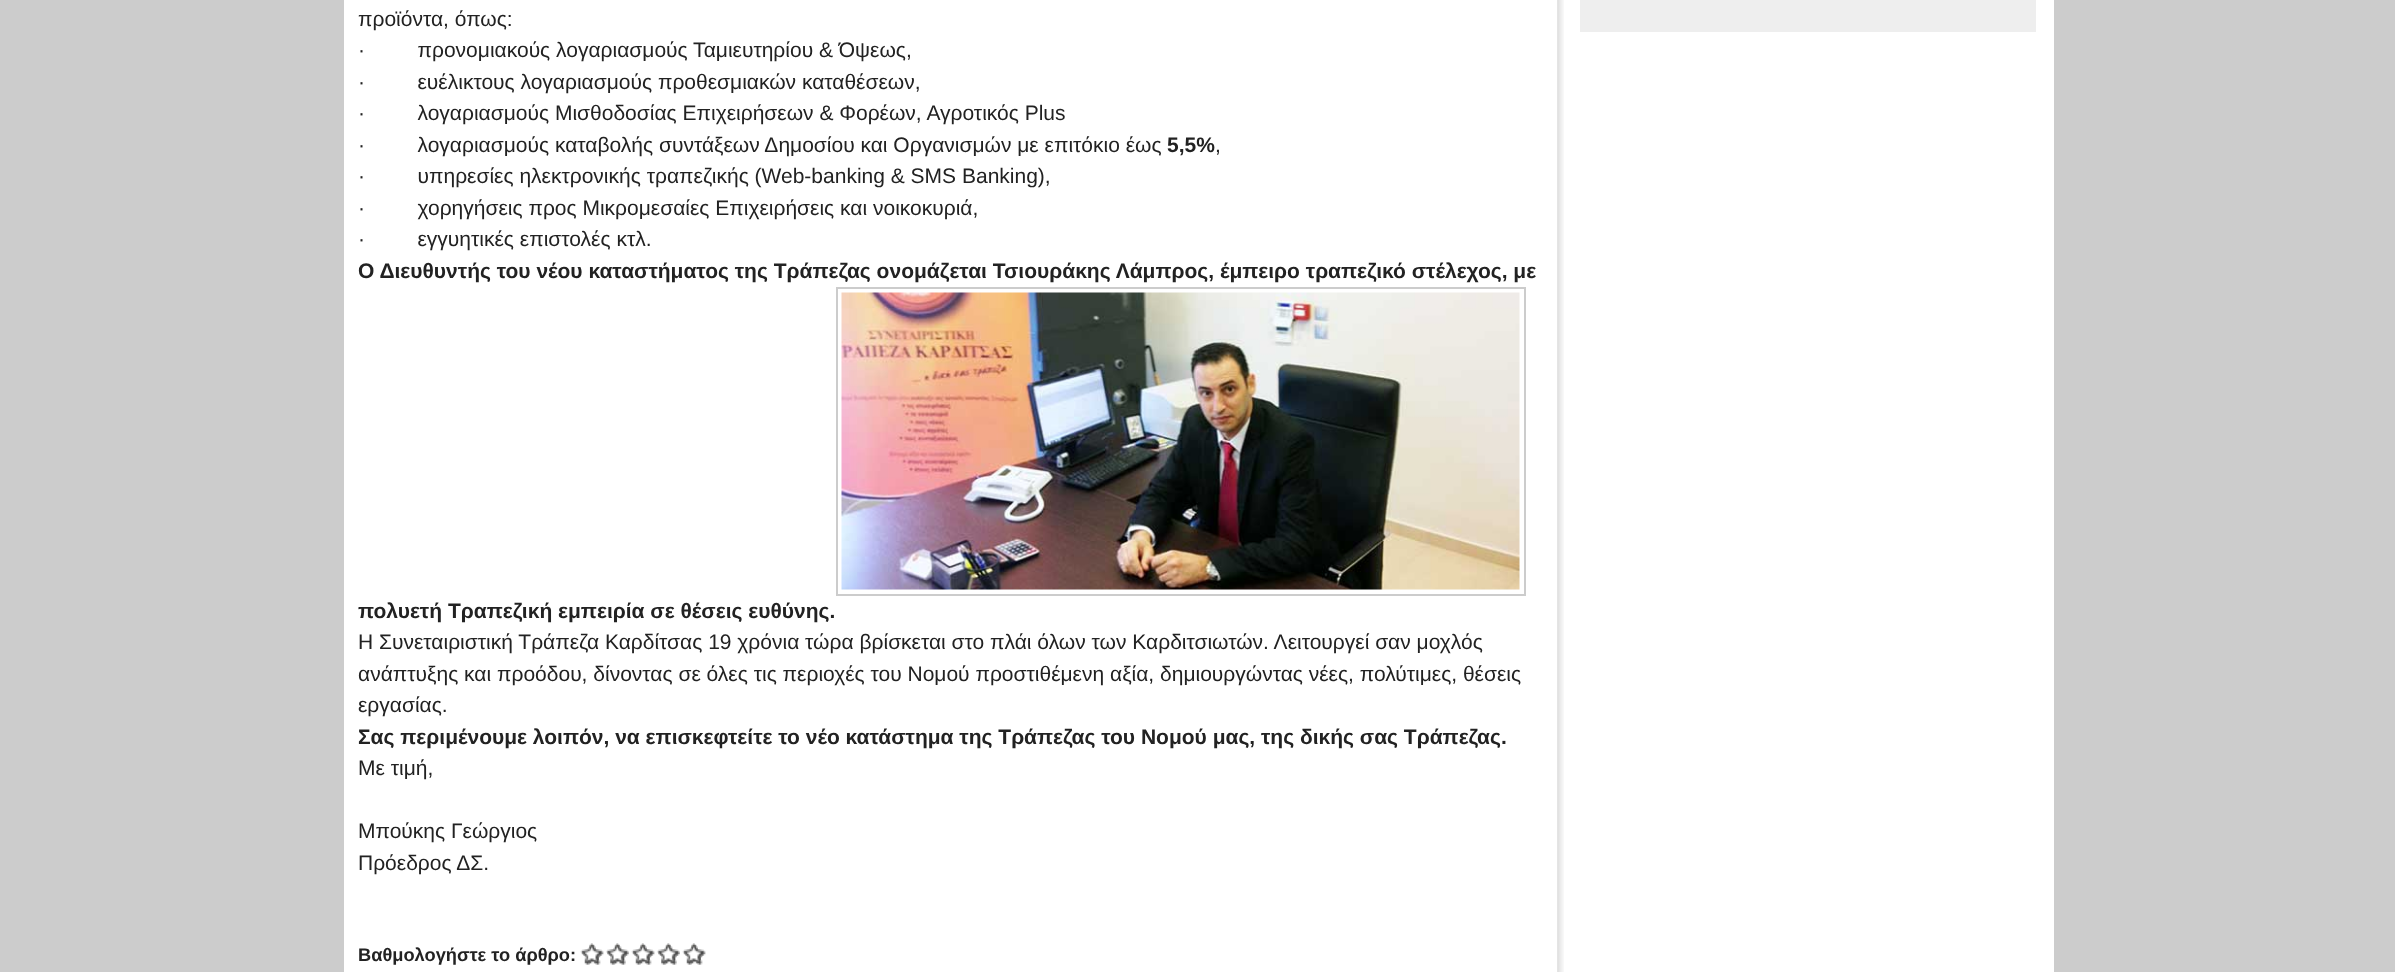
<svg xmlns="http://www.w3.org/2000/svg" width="2395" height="972">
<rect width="100%" height="100%" fill="#ccc"/>
<rect x="344" width="1710" height="972" fill="#fff"/>
<image x="1557" y="0" width="7" height="972" href="media/1.png"/>
<text x="358" y="26" style="font-family:Liberation Sans;font-size:21px;fill:#222">προϊόντα, όπως:</text>
<text x="358" y="57" style="font-family:Liberation Sans;font-size:21px;fill:#222" xml:space="preserve">·         προνομιακούς λογαριασμούς Ταμιευτηρίου &amp; Όψεως,</text>
<text x="358" y="89" style="font-family:Liberation Sans;font-size:21px;fill:#222" xml:space="preserve">·         ευέλικτους λογαριασμούς προθεσμιακών καταθέσεων,</text>
<text x="358" y="120" style="font-family:Liberation Sans;font-size:21px;fill:#222" xml:space="preserve">·         λογαριασμούς Μισθοδοσίας Επιχειρήσεων &amp; Φορέων, Αγροτικός Plus</text>
<text x="358" y="152" style="font-family:Liberation Sans;font-size:21px;fill:#222" xml:space="preserve">·         λογαριασμούς καταβολής συντάξεων Δημοσίου και Οργανισμών με επιτόκιο έως</text>
<text x="1167" y="152" style="font-family:Liberation Sans;font-size:21px;font-weight:bold;fill:#222">5,5%</text>
<text x="1215" y="152" style="font-family:Liberation Sans;font-size:21px;fill:#222">,</text>
<text x="358" y="183" style="font-family:Liberation Sans;font-size:21px;fill:#222" xml:space="preserve">·         υπηρεσίες ηλεκτρονικής τραπεζικής (Web-banking &amp; SMS Banking),</text>
<text x="358" y="215" style="font-family:Liberation Sans;font-size:21px;fill:#222" xml:space="preserve">·         χορηγήσεις προς Μικρομεσαίες Επιχειρήσεις και νοικοκυριά,</text>
<text x="358" y="246" style="font-family:Liberation Sans;font-size:21px;fill:#222" xml:space="preserve">·         εγγυητικές επιστολές κτλ.</text>
<text x="358" y="278" style="font-family:Liberation Sans;font-size:21px;font-weight:bold;fill:#222">Ο Διευθυντής του νέου καταστήματος της Τράπεζας ονομάζεται Τσιουράκης Λάμπρος, έμπειρο τραπεζικό στέλεχος, με</text>
<rect x="837" y="288" width="688" height="307" fill="none" stroke="#ccc" stroke-width="2"/>
<image x="841" y="292" width="679" height="298" href="media/2.png"/>
<text x="358" y="618" style="font-family:Liberation Sans;font-size:21px;font-weight:bold;fill:#222">πολυετή Τραπεζική εμπειρία σε θέσεις ευθύνης.</text>
<text x="358" y="649" style="font-family:Liberation Sans;font-size:21px;fill:#222">Η Συνεταιριστική Τράπεζα Καρδίτσας 19 χρόνια τώρα βρίσκεται στο πλάι όλων των Καρδιτσιωτών. Λειτουργεί σαν μοχλός</text>
<text x="358" y="681" style="font-family:Liberation Sans;font-size:21px;fill:#222">ανάπτυξης και προόδου, δίνοντας σε όλες τις περιοχές του Νομού προστιθέμενη αξία, δημιουργώντας νέες, πολύτιμες, θέσεις</text>
<text x="358" y="712" style="font-family:Liberation Sans;font-size:21px;fill:#222">εργασίας.</text>
<text x="358" y="744" style="font-family:Liberation Sans;font-size:21px;font-weight:bold;fill:#222">Σας περιμένουμε λοιπόν, να επισκεφτείτε το νέο κατάστημα της Τράπεζας του Νομού μας, της δικής σας Τράπεζας.</text>
<text x="358" y="775" style="font-family:Liberation Sans;font-size:21px;fill:#222">Με τιμή,</text>
<text x="358" y="838" style="font-family:Liberation Sans;font-size:21px;fill:#222">Μπούκης Γεώργιος</text>
<text x="358" y="870" style="font-family:Liberation Sans;font-size:21px;fill:#222">Πρόεδρος ΔΣ.</text>
<text x="358" y="961" style="font-family:Liberation Sans;font-size:18.25px;font-weight:bold;fill:#222">Βαθμολογήστε το άρθρο:</text>
<image x="580" y="943" width="24" height="22" href="media/3.png"/>
<image x="581" y="943" width="23" height="22" href="media/4.png"/>
<image x="606" y="943" width="23" height="22" href="media/5.png"/>
<image x="606" y="943" width="23" height="22" href="media/6.png"/>
<image x="631" y="943" width="24" height="22" href="media/3.png"/>
<image x="632" y="943" width="23" height="22" href="media/4.png"/>
<image x="657" y="943" width="23" height="22" href="media/5.png"/>
<image x="657" y="943" width="23" height="22" href="media/6.png"/>
<image x="682" y="943" width="24" height="22" href="media/3.png"/>
<image x="683" y="943" width="23" height="22" href="media/4.png"/>
<rect x="1580" width="456" height="32" fill="#eee"/>
</svg>
